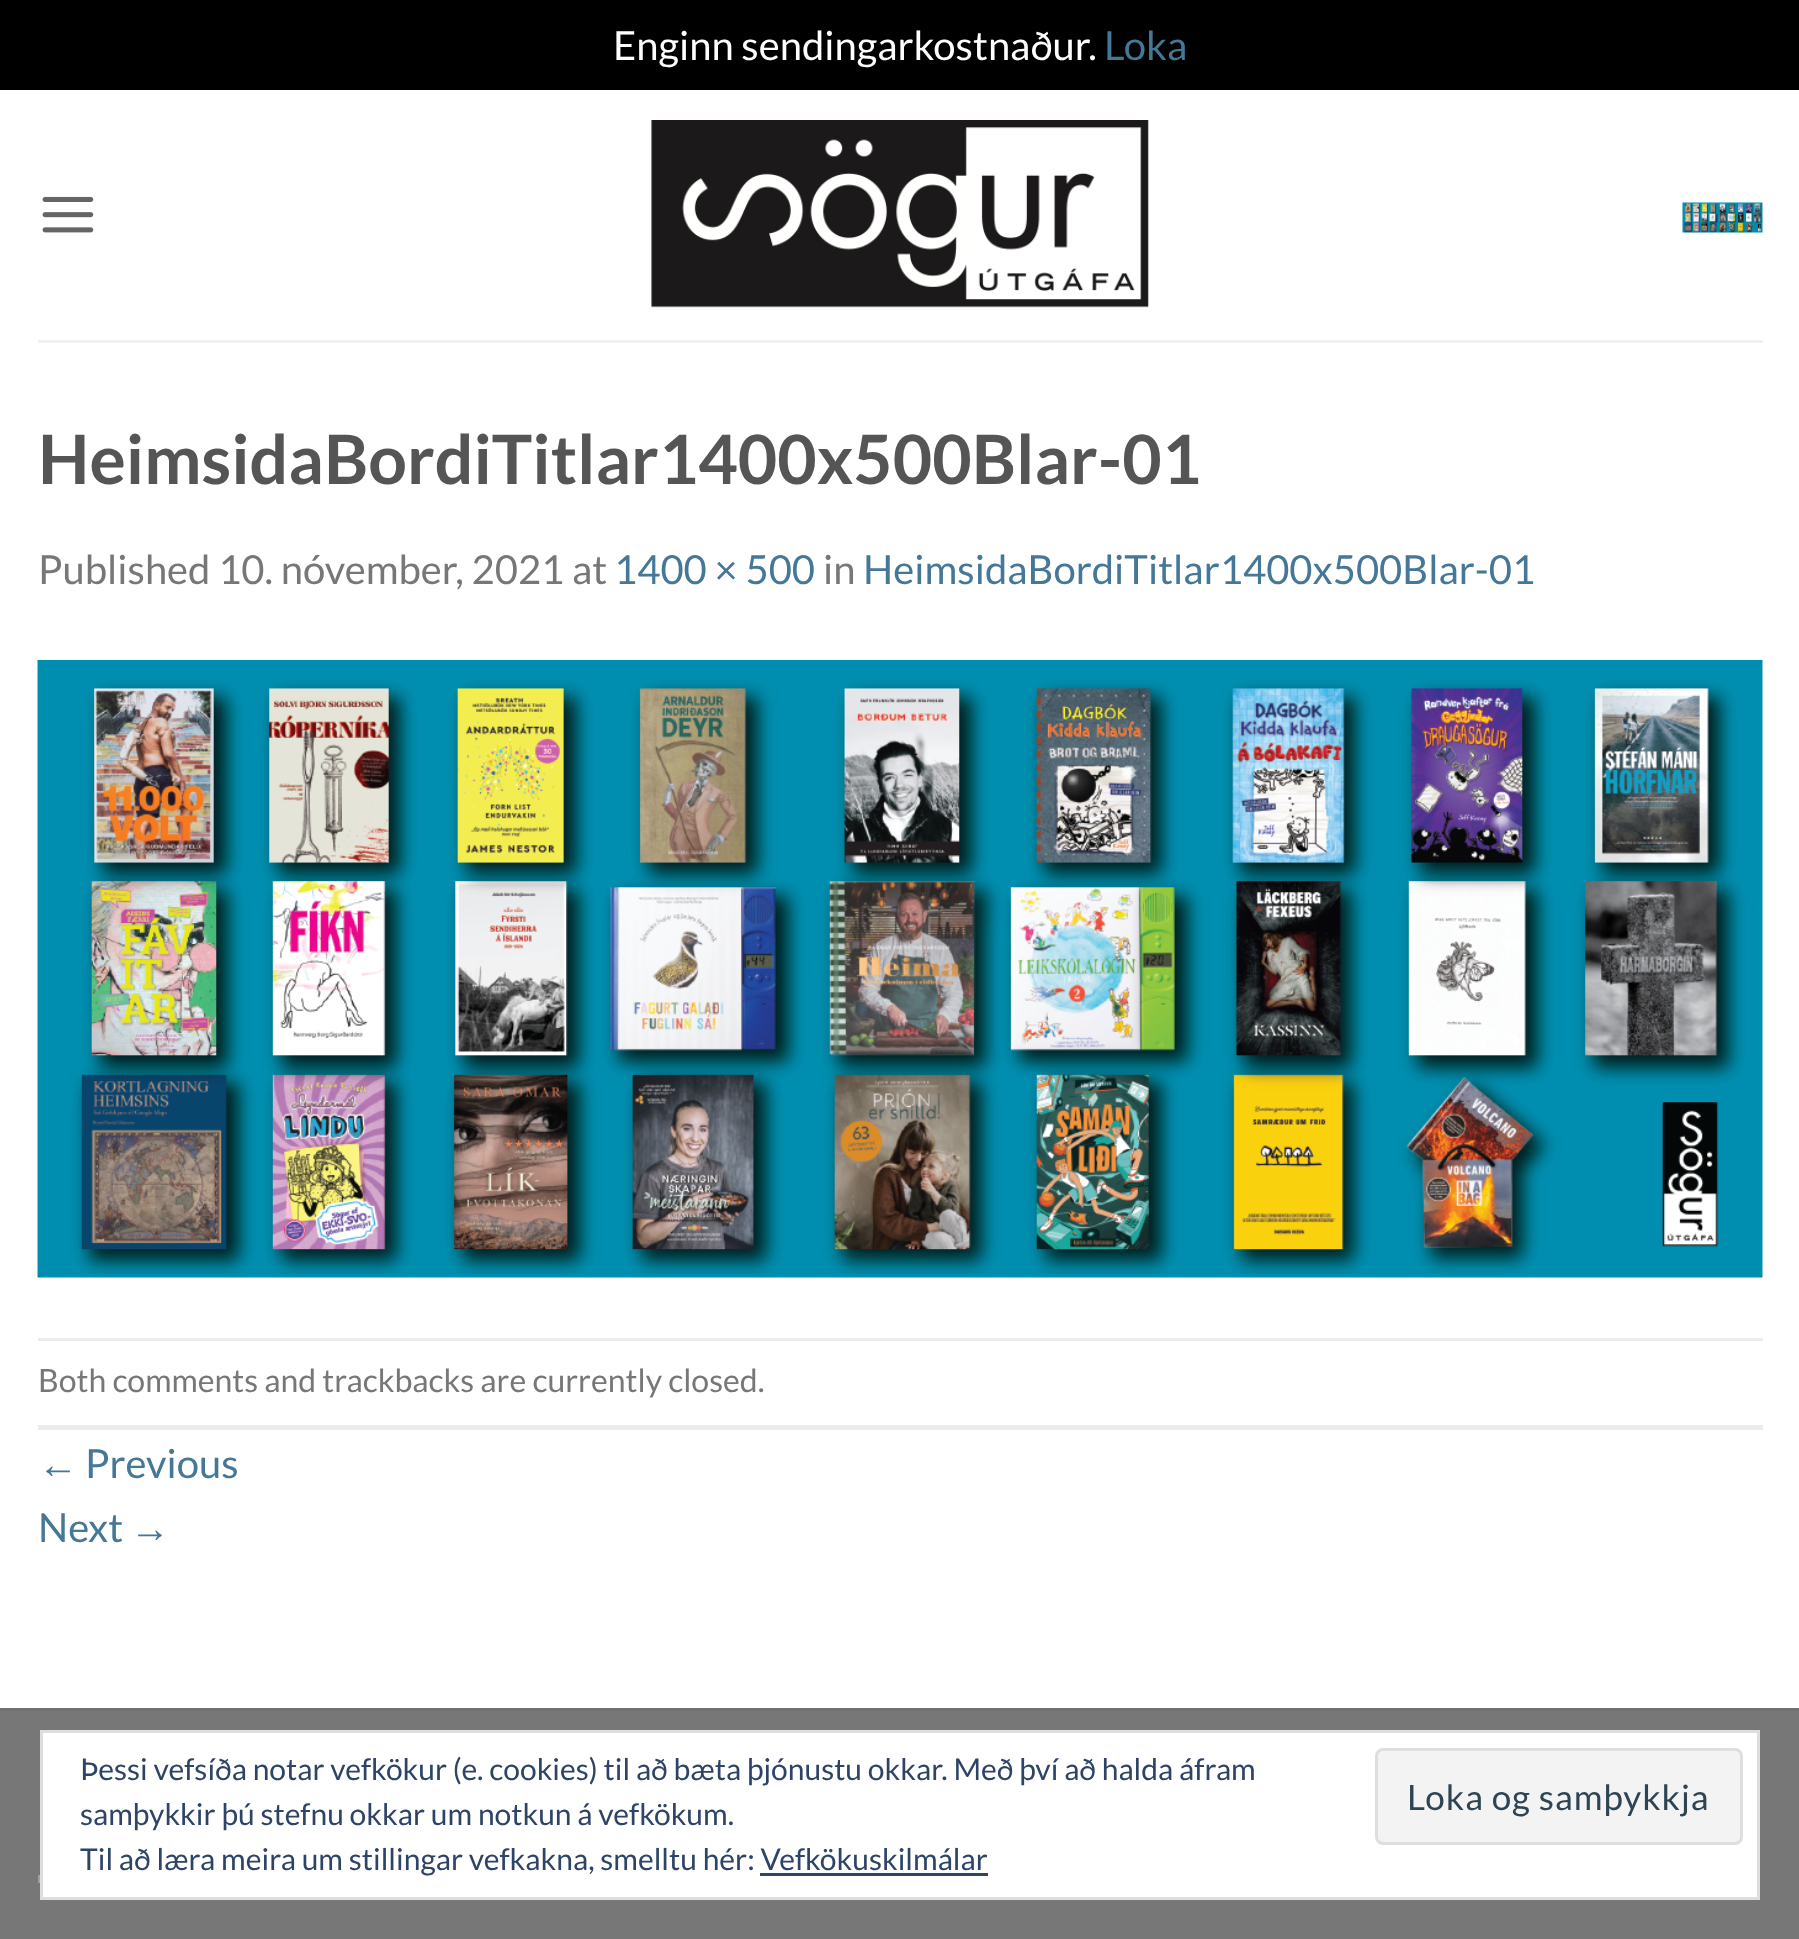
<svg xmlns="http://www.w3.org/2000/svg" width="1799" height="1939">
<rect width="100%" height="100%" fill="#000"/>
<text x="613" y="60" style="font-family:Lato;font-size:40px;fill:#fff">Enginn sendingarkostnaður.</text>
<text x="1104" y="60" style="font-family:Lato;font-size:40px;fill:#457797">Loka</text>
<rect y="90" width="1799" height="1618" fill="#fff"/>
<image x="42" y="196" width="52" height="37" href="media/1.png"/>
<image x="651" y="120" width="498" height="188" href="media/2.png"/>
<image x="1682" y="202" width="81" height="31" href="media/3.png"/>
<rect x="38" y="340" width="1725" height="3" fill="#f1f1f1"/>
<text x="38" y="484" style="font-family:Lato;font-size:68px;font-weight:bold;fill:#555">HeimsidaBordiTitlar1400x500Blar-01</text>
<text x="38" y="584" style="font-family:Lato;font-size:40px;fill:#777">Published 10. nóvember, 2021 at</text>
<text x="614" y="584" style="font-family:Lato;font-size:40px;fill:#457797">1400 × 500</text>
<text x="823" y="584" style="font-family:Lato;font-size:40px;fill:#777">in</text>
<text x="863" y="584" style="font-family:Lato;font-size:40px;fill:#457797">HeimsidaBordiTitlar1400x500Blar-01</text>
<image x="37" y="660" width="1726" height="618" href="media/4.png"/>
<rect x="38" y="1338" width="1725" height="3" fill="#ececec"/>
<rect x="38" y="1425" width="1725" height="5" fill="#ececec"/>
<text x="38" y="1392" style="font-family:Lato;font-size:32px;fill:#777">Both comments and trackbacks are currently closed.</text>
<text x="38" y="1478" style="font-family:Liberation Sans;font-size:40px;fill:#457797">←</text>
<text x="85" y="1478" style="font-family:Lato;font-size:40px;fill:#457797">Previous</text>
<text x="38" y="1542" style="font-family:Lato;font-size:40px;fill:#457797">Next</text>
<text x="130" y="1542" style="font-family:Liberation Sans;font-size:40px;fill:#457797">→</text>
<rect y="1711" width="1799" height="228" fill="#777"/>
<rect y="1708" width="1799" height="3" fill="#717171"/>
<rect x="38" y="1875" width="2" height="8" fill="#a0a0a0"/>
<rect x="41.5" y="1731.5" width="1717" height="167" fill="#fff" stroke="#dedede" stroke-width="3"/>
<text x="80" y="1780" style="font-family:Lato;font-size:30px;fill:#2e4467">Þessi vefsíða notar vefkökur (e. cookies) til að bæta þjónustu okkar. Með því að halda áfram</text>
<text x="80" y="1825" style="font-family:Lato;font-size:30px;fill:#2e4467">samþykkir þú stefnu okkar um notkun á vefkökum.</text>
<rect x="1376.5" y="1749.5" width="365" height="94" rx="6.5" fill="#f3f3f3" stroke="#dedede" stroke-width="3"/>
<text x="1407" y="1810" style="font-family:Lato;font-size:35px;letter-spacing:1px;fill:#2e4453">Loka og samþykkja</text>
<text x="80" y="1870" style="font-family:Lato;font-size:30px;fill:#2e4467">Til að læra meira um stillingar vefkakna, smelltu hér: Vefkökuskilmálar</text>
<rect x="760" y="1873" width="228" height="3" fill="#2e4467"/>
</svg>
